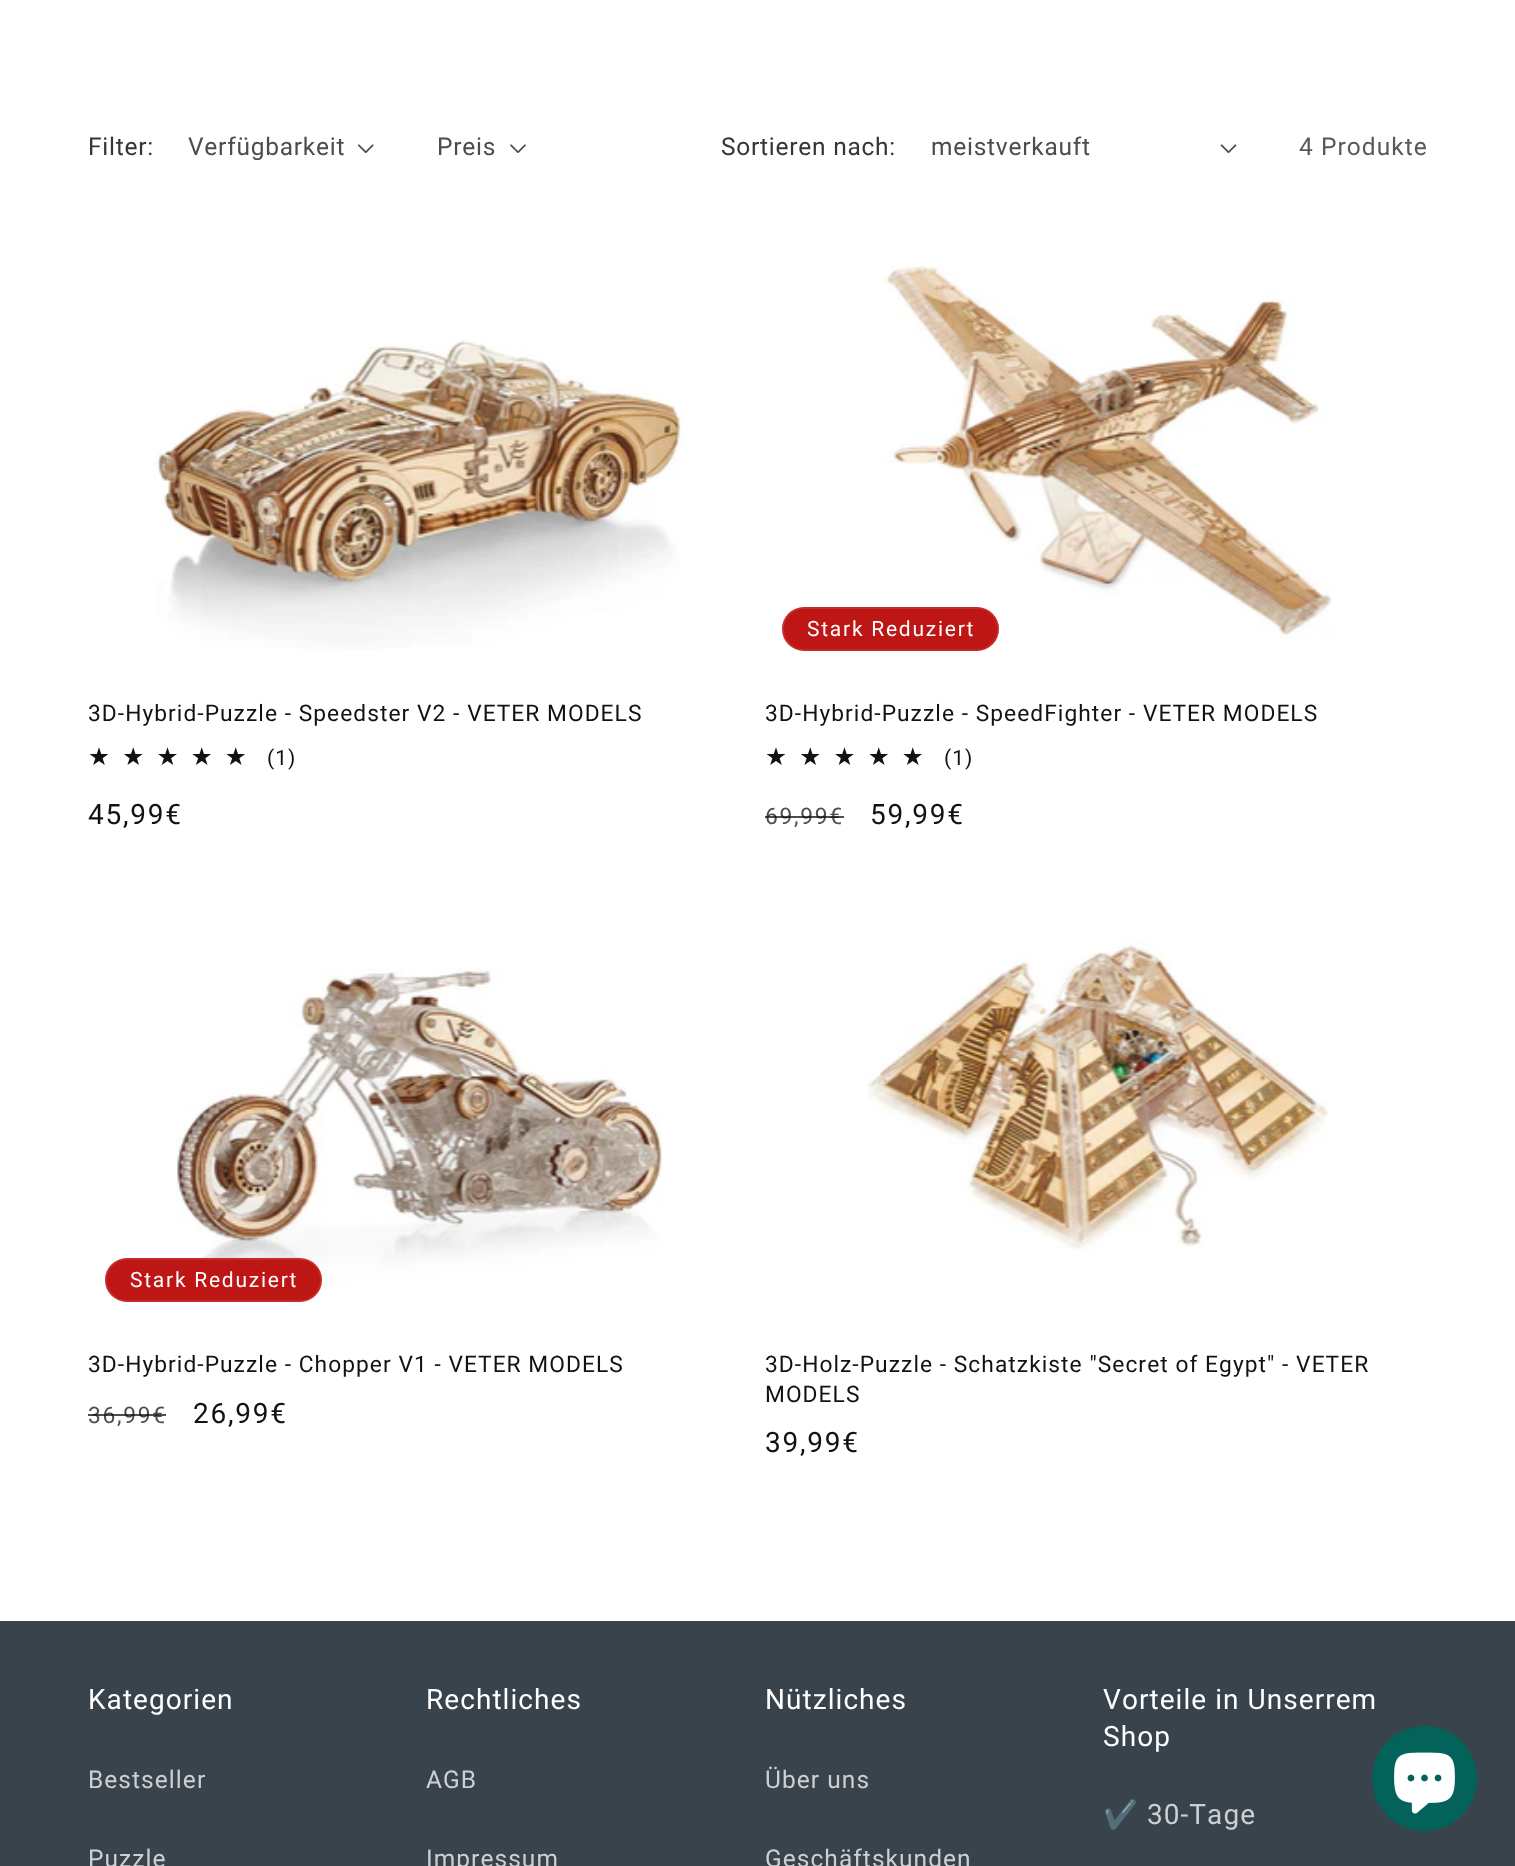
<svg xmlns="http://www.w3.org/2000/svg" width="1515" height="1866">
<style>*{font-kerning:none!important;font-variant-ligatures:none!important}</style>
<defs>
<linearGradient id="g1" gradientUnits="userSpaceOnUse" x1="88" y1="757" x2="259" y2="757"><stop offset="1" stop-color="#121212"/><stop offset="1" stop-color="#dbdbdb"/></linearGradient>
<linearGradient id="g2" gradientUnits="userSpaceOnUse" x1="765" y1="757" x2="936" y2="757"><stop offset="1" stop-color="#121212"/><stop offset="1" stop-color="#dbdbdb"/></linearGradient>
</defs>
<rect width="100%" height="100%" fill="#fff"/>
<text x="88" y="155" style="font-family:Roboto;font-size:24.5px;letter-spacing:0.75px;fill:#363636">Filter:</text>
<text x="188" y="155" style="font-family:Roboto;font-size:24.5px;letter-spacing:0.75px;fill:#4d4d4d">Verfügbarkeit</text>
<image x="357" y="144" width="17" height="10" href="media/1.png"/>
<text x="437" y="155" style="font-family:Roboto;font-size:24.5px;letter-spacing:0.75px;fill:#4d4d4d">Preis</text>
<image x="510" y="144" width="16" height="9" href="media/2.png"/>
<text x="721" y="155" style="font-family:Roboto;font-size:24.5px;letter-spacing:0.75px;fill:#363636">Sortieren nach:</text>
<text x="931" y="155" style="font-family:Roboto;font-size:24.5px;letter-spacing:0.75px;fill:#4d4d4d">meistverkauft</text>
<image x="1220" y="144" width="17" height="10" href="media/3.png"/>
<text x="1299" y="155" style="font-family:Roboto;font-size:24.5px;letter-spacing:1.05px;fill:#595959">4 Produkte</text>
<image x="154" y="340" width="529" height="309" href="media/4.png"/>
<text x="88" y="721" style="font-family:Roboto;font-size:22.75px;letter-spacing:1.05px;fill:#121212">3D-Hybrid-Puzzle - Speedster V2 - VETER MODELS</text>
<text x="88" y="765" style="font-family:DejaVu Sans;font-size:24.5px;letter-spacing:12.25px;fill:url(#g1)">★★★★★</text>
<text x="267" y="765" style="font-family:Roboto;font-size:21px;letter-spacing:1px;fill:#121212">(1)</text>
<text x="88" y="824" style="font-family:Roboto;font-size:28px;letter-spacing:1.75px;fill:#121212">45,99€</text>
<image x="883" y="265" width="450" height="375" href="media/5.png"/>
<rect x="782" y="607" width="217" height="44" rx="22" fill="#be1515"/>
<rect x="783" y="608" width="215" height="42" rx="21" fill="none" stroke="#ffffff1a" stroke-width="2"/>
<text x="807" y="636" style="font-family:Roboto;font-size:21px;letter-spacing:1.75px;fill:#fff">Stark Reduziert</text>
<text x="765" y="721" style="font-family:Roboto;font-size:22.75px;letter-spacing:1.05px;fill:#121212">3D-Hybrid-Puzzle - SpeedFighter - VETER MODELS</text>
<text x="765" y="765" style="font-family:DejaVu Sans;font-size:24.5px;letter-spacing:12.25px;fill:url(#g2)">★★★★★</text>
<text x="944" y="765" style="font-family:Roboto;font-size:21px;letter-spacing:1px;fill:#121212">(1)</text>
<text x="765" y="824" style="font-family:Roboto;font-size:22.75px;letter-spacing:1.75px;fill:#4d4d4d">69,99€</text>
<rect x="765" y="816" width="79" height="2" fill="#121212bf"/>
<text x="870" y="824" style="font-family:Roboto;font-size:28px;letter-spacing:1.75px;fill:#121212">59,99€</text>
<image x="175" y="968" width="488" height="324" href="media/6.png"/>
<rect x="105" y="1258" width="217" height="44" rx="22" fill="#be1515"/>
<rect x="106" y="1259" width="215" height="42" rx="21" fill="none" stroke="#ffffff1a" stroke-width="2"/>
<text x="130" y="1287" style="font-family:Roboto;font-size:21px;letter-spacing:1.75px;fill:#fff">Stark Reduziert</text>
<text x="88" y="1372" style="font-family:Roboto;font-size:22.75px;letter-spacing:1.05px;fill:#121212">3D-Hybrid-Puzzle - Chopper V1 - VETER MODELS</text>
<text x="88" y="1423" style="font-family:Roboto;font-size:22.75px;letter-spacing:1.75px;fill:#4d4d4d">36,99€</text>
<rect x="88" y="1414" width="78" height="2" fill="#121212bf"/>
<text x="193" y="1423" style="font-family:Roboto;font-size:28px;letter-spacing:1.75px;fill:#121212">26,99€</text>
<image x="867" y="939" width="462" height="312" href="media/7.png"/>
<text x="765" y="1372" style="font-family:Roboto;font-size:22.75px;letter-spacing:1.05px;fill:#121212">3D-Holz-Puzzle - Schatzkiste "Secret of Egypt" - VETER</text>
<text x="765" y="1402" style="font-family:Roboto;font-size:22.75px;letter-spacing:1.05px;fill:#121212">MODELS</text>
<text x="765" y="1452" style="font-family:Roboto;font-size:28px;letter-spacing:1.75px;fill:#121212">39,99€</text>
<rect y="1621" width="1515" height="245" fill="#38434c"/>
<text x="88" y="1709" style="font-family:Roboto;font-size:28px;letter-spacing:1.05px;fill:#fff">Kategorien</text>
<text x="88" y="1788" style="font-family:Roboto;font-size:24.5px;letter-spacing:1.05px;fill:#cdd0d2">Bestseller</text>
<text x="88" y="1867" style="font-family:Roboto;font-size:24.5px;letter-spacing:1.05px;fill:#cdd0d2">Puzzle</text>
<text x="426" y="1709" style="font-family:Roboto;font-size:28px;letter-spacing:1.05px;fill:#fff">Rechtliches</text>
<text x="426" y="1788" style="font-family:Roboto;font-size:24.5px;letter-spacing:1.05px;fill:#cdd0d2">AGB</text>
<text x="426" y="1867" style="font-family:Roboto;font-size:24.5px;letter-spacing:1.05px;fill:#cdd0d2">Impressum</text>
<text x="765" y="1709" style="font-family:Roboto;font-size:28px;letter-spacing:1.05px;fill:#fff">Nützliches</text>
<text x="765" y="1788" style="font-family:Roboto;font-size:24.5px;letter-spacing:1.05px;fill:#cdd0d2">Über uns</text>
<text x="765" y="1867" style="font-family:Roboto;font-size:24.5px;letter-spacing:1.05px;fill:#cdd0d2">Geschäftskunden</text>
<text x="1103" y="1709" style="font-family:Roboto;font-size:28px;letter-spacing:1.05px;fill:#fff">Vorteile in Unserrem</text>
<text x="1103" y="1746" style="font-family:Roboto;font-size:28px;letter-spacing:1.05px;fill:#fff">Shop</text>
<text x="1103" y="1824" style="font-family:Noto Color Emoji;font-size:28px;letter-spacing:1.05px;fill:#cdd0d2">✔</text>
<text x="1147" y="1824" style="font-family:Roboto;font-size:28px;letter-spacing:1.05px;fill:#cdd0d2">30-Tage</text>
<circle cx="1424.5" cy="1778.5" r="52.5" fill="#03635a"/>
<image x="1394" y="1752" width="61" height="62" href="media/8.png"/>
</svg>
